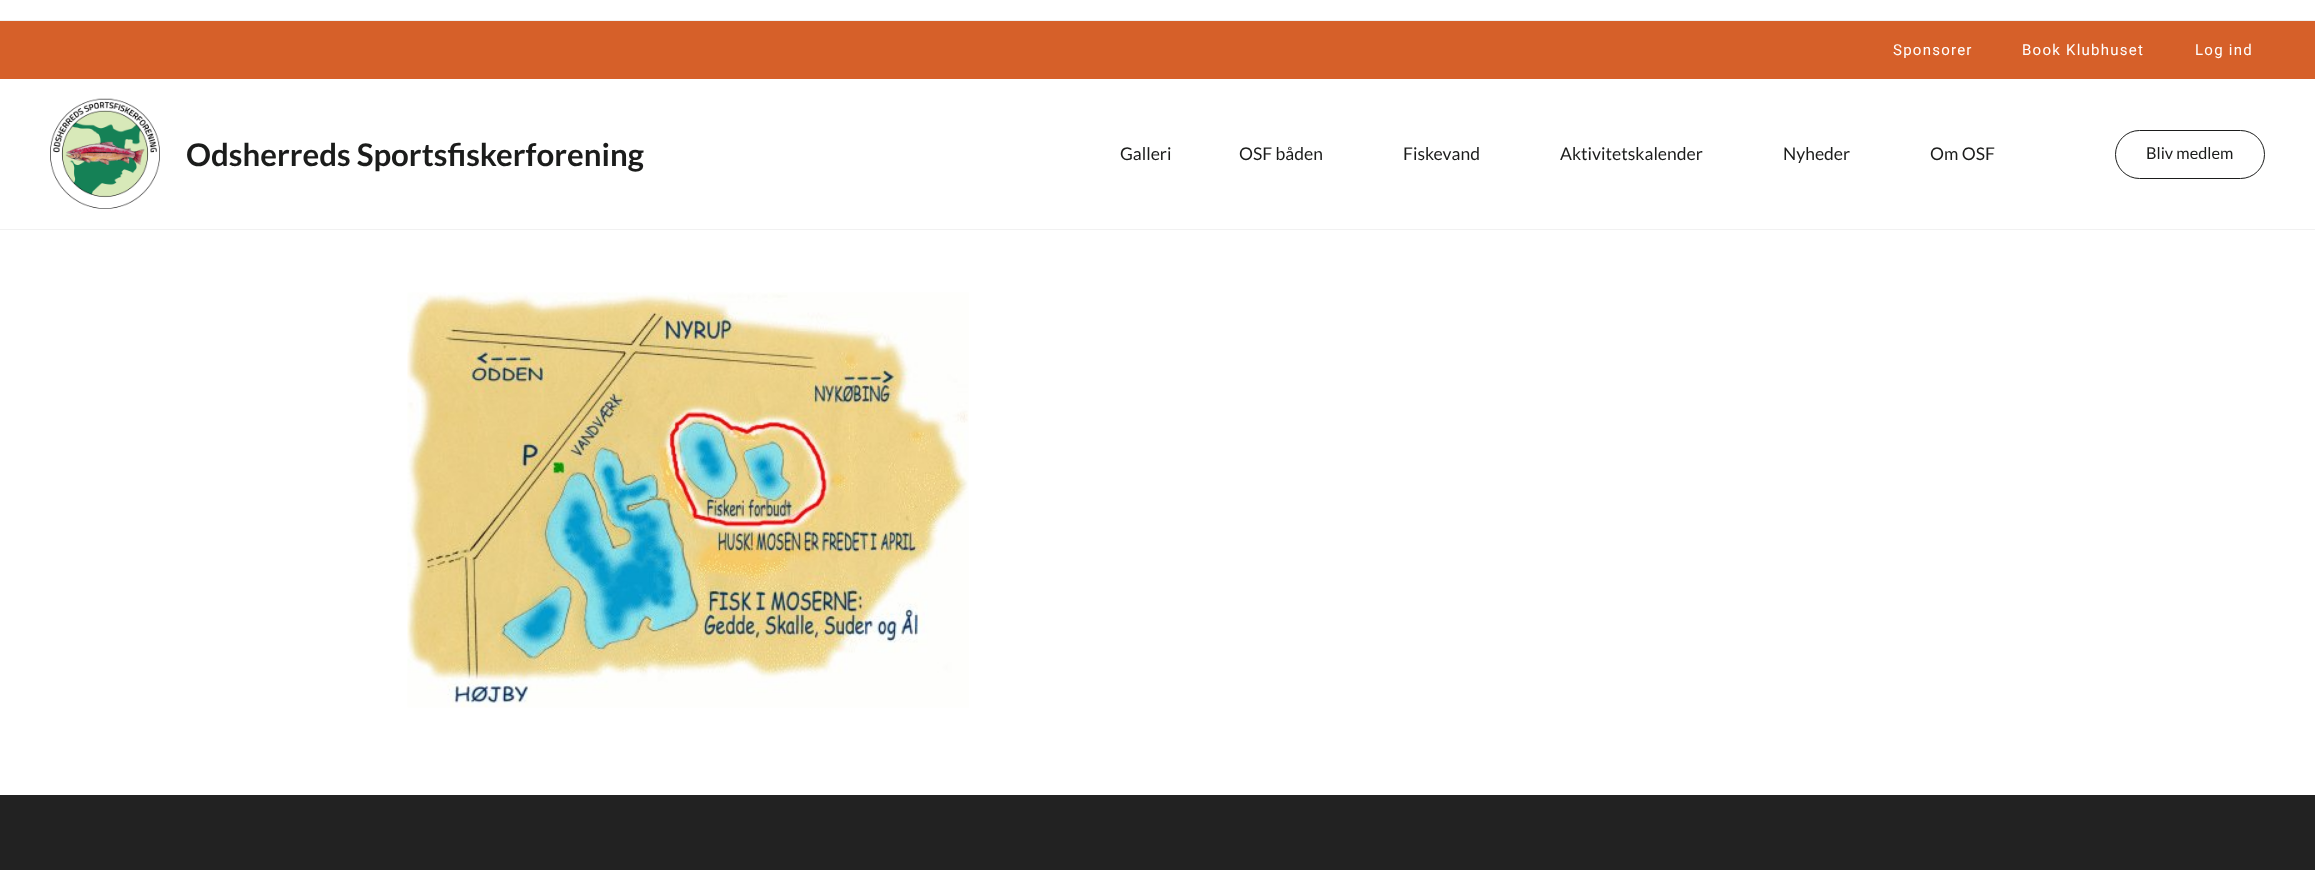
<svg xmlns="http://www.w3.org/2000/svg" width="2315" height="870">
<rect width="100%" height="100%" fill="#fff"/>
<rect y="20" width="2315" height="1" fill="#f1f1f1"/>
<rect y="229" width="2315" height="1" fill="#f1f1f1"/>
<rect y="21" width="2315" height="58" fill="#d66029"/>
<text x="1893" y="55" style="font-family:Roboto;font-size:15px;letter-spacing:1.25px;fill:#fff">Sponsorer</text>
<text x="2022" y="55" style="font-family:Roboto;font-size:15px;letter-spacing:1.25px;fill:#fff">Book Klubhuset</text>
<text x="2195" y="55" style="font-family:Roboto;font-size:15px;letter-spacing:1.25px;fill:#fff">Log ind</text>
<image x="50" y="98" width="110" height="111" href="media/1.png"/>
<text x="186" y="166" style="font-family:Lato;font-size:31.25px;font-weight:bold;fill:#1b1c1b">Odsherreds Sportsfiskerforening</text>
<text x="1120" y="160" style="font-family:Lato;font-size:17.5px;fill:#1b1c1b">Galleri</text>
<text x="1239" y="160" style="font-family:Lato;font-size:17.5px;fill:#1b1c1b">OSF båden</text>
<text x="1403" y="160" style="font-family:Lato;font-size:17.5px;fill:#1b1c1b">Fiskevand</text>
<text x="1560" y="160" style="font-family:Lato;font-size:17.5px;fill:#1b1c1b">Aktivitetskalender</text>
<text x="1783" y="160" style="font-family:Lato;font-size:17.5px;fill:#1b1c1b">Nyheder</text>
<text x="1930" y="160" style="font-family:Lato;font-size:17.5px;fill:#1b1c1b">Om OSF</text>
<rect x="2115.5" y="130.5" width="149" height="48" rx="24" fill="none" stroke="#1b1c1b"/>
<text x="2146" y="159" style="font-family:Lato;font-size:16.25px;fill:#1b1c1b">Bliv medlem</text>
<image x="407" y="292" width="562" height="416" href="media/2.png"/>
<rect y="795" width="2315" height="75" fill="#222"/>
</svg>
